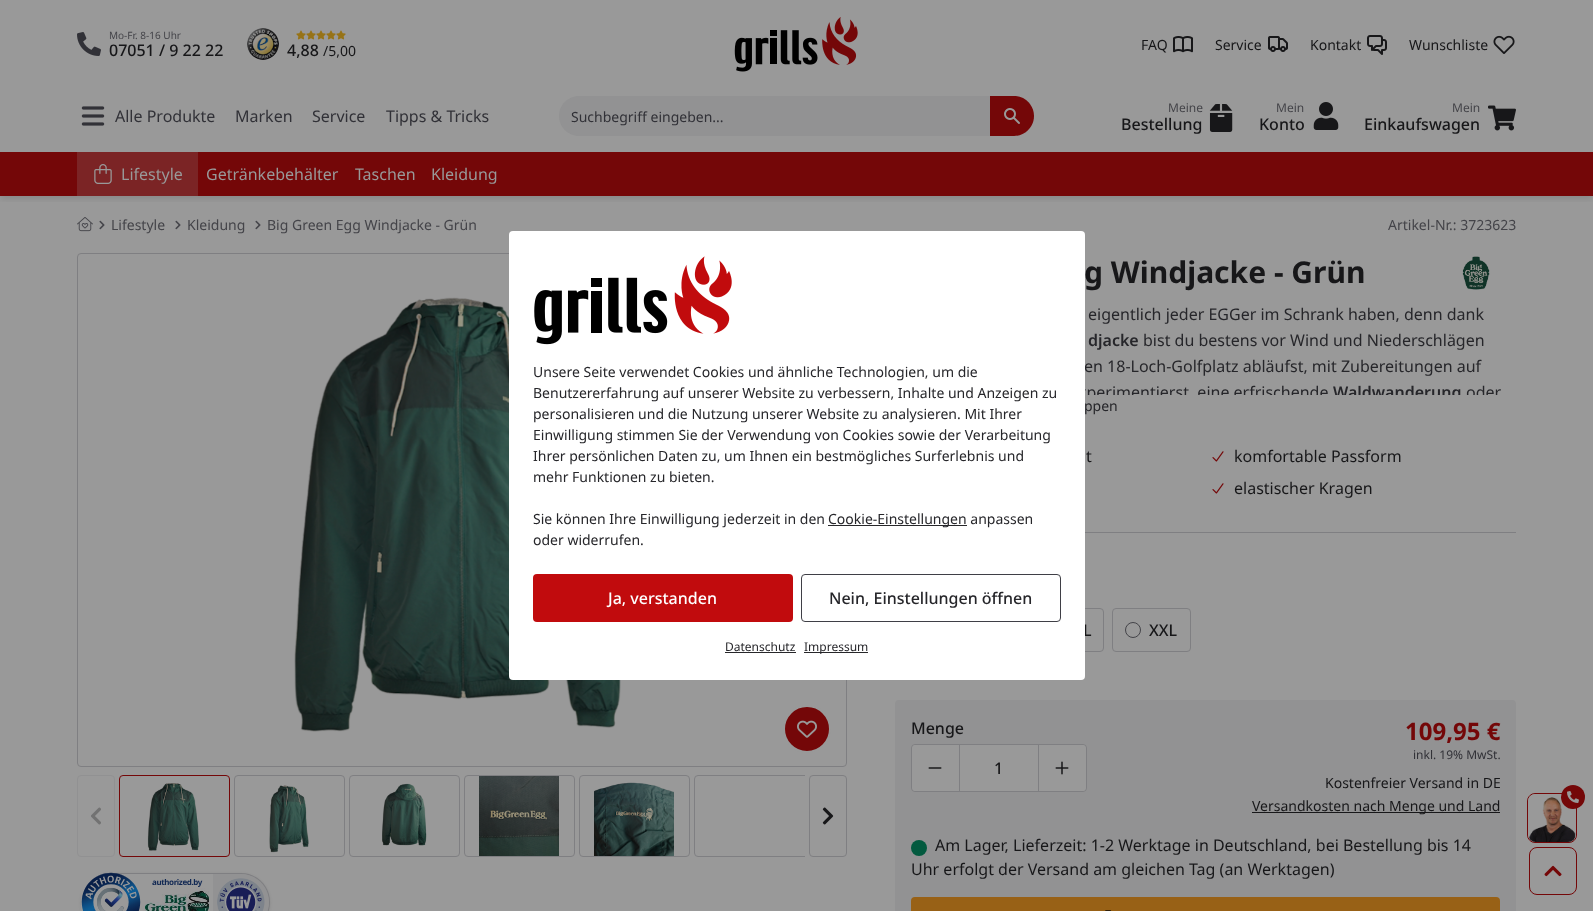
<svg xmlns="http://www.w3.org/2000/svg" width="1593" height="911">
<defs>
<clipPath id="clip1"><rect x="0" y="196" width="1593" height="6"/></clipPath>
<clipPath id="clip2"><rect x="895" y="301" width="621" height="94"/></clipPath>
<clipPath id="clip3"><rect x="119" y="775" width="686" height="82"/></clipPath>
</defs>
<rect width="100%" height="100%" fill="#999"/>
<g clip-path="url(#clip1)">
<rect x="1" y="5" width="1591" height="194" fill="#0000001a" filter="blur(3px)"/>
</g>
<image x="77" y="32" width="24" height="24" href="media/1.png"/>
<text x="109" y="39" style="font-family:Noto Sans;font-size:10px;fill:#444449">Mo-Fr. 8-16 Uhr</text>
<text x="109" y="56" style="font-family:Noto Sans;font-size:16px;font-weight:500;fill:#171719">07051 / 9 22 22</text>
<image x="247" y="28" width="32" height="32" href="media/2.png"/>
<image x="296" y="30" width="10" height="10" href="media/3.png"/>
<image x="306" y="30" width="10" height="10" href="media/3.png"/>
<image x="316" y="30" width="10" height="10" href="media/3.png"/>
<image x="326" y="30" width="10" height="10" href="media/3.png"/>
<image x="336" y="30" width="10" height="10" href="media/3.png"/>
<text x="287" y="56" style="font-family:Noto Sans;font-size:16px;font-weight:500;fill:#171719">4,88</text>
<text x="323" y="56" style="font-family:Noto Sans;font-size:14px;fill:#171719">/5,00</text>
<image x="734" y="17" width="124" height="55" href="media/4.png"/>
<text x="1141" y="50" style="font-family:Noto Sans;font-size:14px;fill:#171719">FAQ</text>
<image x="1173" y="36" width="20" height="17" href="media/5.png"/>
<text x="1215" y="50" style="font-family:Noto Sans;font-size:14px;fill:#171719">Service</text>
<image x="1268" y="36" width="20" height="16" href="media/6.png"/>
<text x="1310" y="50" style="font-family:Noto Sans;font-size:14px;fill:#171719">Kontakt</text>
<image x="1367" y="35" width="20" height="20" href="media/7.png"/>
<text x="1409" y="50" style="font-family:Noto Sans;font-size:14px;fill:#171719">Wunschliste</text>
<image x="1493" y="35" width="22" height="19" href="media/8.png"/>
<image x="81" y="106" width="24" height="20" href="media/9.png"/>
<text x="115" y="122" style="font-family:Noto Sans;font-size:16px;fill:#313137">Alle Produkte</text>
<text x="235" y="122" style="font-family:Noto Sans;font-size:16px;fill:#313137">Marken</text>
<text x="312" y="122" style="font-family:Noto Sans;font-size:16px;fill:#313137">Service</text>
<text x="386" y="122" style="font-family:Noto Sans;font-size:16px;fill:#313137">Tipps &amp; Tricks</text>
<path d="M579 96h411v40h-411c-11 0-20-9-20-20c0-11 9-20 20-20z" fill="#929293"/>
<text x="571" y="122" style="font-family:Noto Sans;font-size:14px;fill:#313137">Suchbegriff eingeben...</text>
<path d="M990 96h24c11 0 20 9 20 20c0 11-9 20-20 20h-24z" fill="#740708"/>
<image x="1004" y="108" width="16" height="16" href="media/10.png"/>
<text x="1168" y="112" style="font-family:Noto Sans;font-size:12px;fill:#444449">Meine</text>
<text x="1121" y="130" style="font-family:Noto Sans;font-size:16px;font-weight:500;fill:#171719">Bestellung</text>
<image x="1209" y="104" width="24" height="28" href="media/11.png"/>
<text x="1276" y="112" style="font-family:Noto Sans;font-size:12px;fill:#444449">Mein</text>
<text x="1259" y="130" style="font-family:Noto Sans;font-size:16px;font-weight:500;fill:#171719">Konto</text>
<image x="1313" y="102" width="26" height="28" href="media/12.png"/>
<text x="1452" y="112" style="font-family:Noto Sans;font-size:12px;fill:#444449">Mein</text>
<text x="1364" y="130" style="font-family:Noto Sans;font-size:16px;font-weight:500;fill:#171719">Einkaufswagen</text>
<image x="1488" y="105" width="28" height="26" href="media/13.png"/>
<rect y="152" width="1593" height="44" fill="#740708"/>
<rect x="77" y="152" width="121" height="44" fill="#7b2425"/>
<image x="94" y="164" width="18" height="20" href="media/14.png"/>
<text x="121" y="180" style="font-family:Noto Sans;font-size:16px;fill:#999">Lifestyle</text>
<text x="206" y="180" style="font-family:Noto Sans;font-size:16px;fill:#999">Getränkebehälter</text>
<text x="355" y="180" style="font-family:Noto Sans;font-size:16px;fill:#999">Taschen</text>
<text x="431" y="180" style="font-family:Noto Sans;font-size:16px;fill:#999">Kleidung</text>
<image x="77" y="217" width="16" height="15" href="media/15.png"/>
<image x="99" y="220" width="6" height="10" href="media/16.png"/>
<text x="111" y="230" style="font-family:Noto Sans;font-size:14px;fill:#444449">Lifestyle</text>
<image x="175" y="220" width="6" height="10" href="media/16.png"/>
<text x="187" y="230" style="font-family:Noto Sans;font-size:14px;fill:#444449">Kleidung</text>
<image x="255" y="220" width="6" height="10" href="media/16.png"/>
<text x="267" y="230" style="font-family:Noto Sans;font-size:14px;fill:#444449">Big Green Egg Windjacke - Grün</text>
<text x="1388" y="230" style="font-family:Noto Sans;font-size:14px;fill:#444449">Artikel-Nr.: 3723623</text>
<text x="1084" y="283" style="font-family:Noto Sans;font-size:30px;font-weight:bold;fill:#171719">g Windjacke - Grün</text>
<image x="1462" y="256" width="28" height="34" href="media/17.png"/>
<text x="1088" y="320" style="font-family:Noto Sans;font-size:16px;fill:#26262a">eigentlich jeder EGGer im Schrank haben, denn dank</text>
<text x="1088" y="346" style="font-family:Noto Sans;font-size:16px;font-weight:600;fill:#26262a">djacke</text>
<text x="1143" y="346" style="font-family:Noto Sans;font-size:16px;fill:#26262a">bist du bestens vor Wind und Niederschlägen</text>
<text x="1084" y="372" style="font-family:Noto Sans;font-size:16px;fill:#26262a">en 18-Loch-Golfplatz abläufst, mit Zubereitungen auf</text>
<g clip-path="url(#clip2)">
<text x="1078" y="398" style="font-family:Noto Sans;font-size:16px;fill:#26262a">xperimentierst, eine erfrischende</text>
<text x="1333" y="398" style="font-family:Noto Sans;font-size:16px;font-weight:600;fill:#26262a">Waldwanderung</text>
<text x="1466" y="398" style="font-family:Noto Sans;font-size:16px;fill:#26262a">oder</text>
</g>
<text x="1084" y="411" style="font-family:Noto Sans;font-size:14px;fill:#26262a">ppen</text>
<text x="1086" y="462" style="font-family:Noto Sans;font-size:16px;fill:#171719">t</text>
<image x="1212" y="451" width="12" height="11" href="media/18.png"/>
<text x="1234" y="462" style="font-family:Noto Sans;font-size:16px;fill:#171719">komfortable Passform</text>
<image x="1212" y="483" width="12" height="11" href="media/18.png"/>
<text x="1234" y="494" style="font-family:Noto Sans;font-size:16px;fill:#171719">elastischer Kragen</text>
<rect x="1085" y="532" width="431" height="1" fill="#7f7f82"/>
<rect x="1036.5" y="608.5" width="67" height="43" rx="3.5" fill="none" stroke="#7f7f82"/>
<text x="1083" y="636" style="font-family:Noto Sans;font-size:16px;font-weight:500;fill:#171719">L</text>
<rect x="1112.5" y="608.5" width="78" height="43" rx="3.5" fill="none" stroke="#7f7f82"/>
<circle cx="1133" cy="630" r="7.5" fill="none" stroke="#444449"/>
<text x="1149" y="636" style="font-family:Noto Sans;font-size:16px;font-weight:500;fill:#171719">XXL</text>
<rect x="895" y="700" width="621" height="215" rx="4" fill="#929293"/>
<text x="911" y="734" style="font-family:Noto Sans;font-size:16px;font-weight:500;fill:#171719">Menge</text>
<rect x="911.5" y="744.5" width="175" height="47" rx="3.5" fill="none" stroke="#7f7f82"/>
<path d="M915 745h44v46h-44c-1.5 0-3-1.5-3-3v-40c0-1.5 1.5-3 3-3z" fill="#999"/>
<rect x="959" y="745" width="1" height="46" fill="#7f7f82"/>
<image x="928" y="767" width="14" height="2" href="media/19.png"/>
<rect x="960" y="745" width="78" height="46" fill="#999"/>
<text x="994" y="774" style="font-family:Noto Sans;font-size:16px;font-weight:500;fill:#171719">1</text>
<path d="M1039 745h44c1.5 0 3 1.5 3 3v40c0 1.5-1.5 3-3 3h-44z" fill="#999"/>
<rect x="1038" y="745" width="1" height="46" fill="#7f7f82"/>
<image x="1055" y="761" width="14" height="14" href="media/20.png"/>
<text x="1405" y="740" style="font-family:Noto Sans;font-size:24px;font-weight:bold;fill:#740708">109,95 €</text>
<text x="1413" y="759" style="font-family:Noto Sans;font-size:12px;fill:#313137">inkl. 19% MwSt.</text>
<text x="1325" y="788" style="font-family:Noto Sans;font-size:14px;fill:#171719">Kostenfreier Versand in DE</text>
<rect x="1252" y="812" width="248" height="1" fill="#171719"/>
<text x="1252" y="811" style="font-family:Noto Sans;font-size:14px;fill:#171719">Versandkosten nach Menge und Land</text>
<circle cx="919" cy="848" r="8" fill="#035a3f"/>
<text x="935" y="851" style="font-family:Noto Sans;font-size:16px;fill:#171719">Am Lager, Lieferzeit: 1-2 Werktage in Deutschland, bei Bestellung bis 14</text>
<text x="911" y="875" style="font-family:Noto Sans;font-size:16px;fill:#171719">Uhr erfolgt der Versand am gleichen Tag (an Werktagen)</text>
<rect x="911" y="897" width="589" height="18" rx="4" fill="#986116"/>
<image x="1105" y="910" width="7" height="1" href="media/21.png"/>
<rect x="77.5" y="253.5" width="769" height="513" rx="3.5" fill="none" stroke="#7f7f82"/>
<image x="294" y="297" width="327" height="435" href="media/22.png"/>
<circle cx="807" cy="729" r="23" fill="#740708" stroke="#999" stroke-width="2"/>
<image x="797" y="720" width="20" height="18" href="media/23.png"/>
<rect x="77.5" y="775.5" width="37" height="81" rx="3.5" fill="none" stroke="#919192"/>
<image x="91" y="807" width="10" height="18" href="media/24.png"/>
<rect x="119.5" y="775.5" width="110" height="81" rx="3.5" fill="none" stroke="#740708"/>
<image x="147" y="783" width="52" height="68" href="media/25.png"/>
<rect x="234.5" y="775.5" width="110" height="81" rx="3.5" fill="none" stroke="#7f7f82"/>
<image x="269" y="785" width="40" height="68" href="media/26.png"/>
<rect x="349.5" y="775.5" width="110" height="81" rx="3.5" fill="none" stroke="#7f7f82"/>
<image x="382" y="783" width="45" height="63" href="media/27.png"/>
<rect x="464.5" y="775.5" width="110" height="81" rx="3.5" fill="none" stroke="#7f7f82"/>
<image x="479" y="776" width="80" height="80" href="media/28.png"/>
<rect x="579.5" y="775.5" width="110" height="81" rx="3.5" fill="none" stroke="#7f7f82"/>
<image x="594" y="782" width="80" height="74" href="media/29.png"/>
<rect x="809.5" y="775.5" width="37" height="81" rx="3.5" fill="none" stroke="#7f7f82"/>
<image x="822" y="807" width="12" height="18" href="media/30.png"/>
<g clip-path="url(#clip3)">
<rect x="694.5" y="775.5" width="129" height="81" rx="3.5" fill="none" stroke="#7f7f82"/>
</g>
<rect x="81" y="874" width="189" height="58" rx="29" fill="#0000001a" filter="blur(1.5px)"/>
<path d="M110 873h131c16 0 29 13 29 29c0 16-13 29-29 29h-131c-16 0-29-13-29-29c0-16 13-29 29-29zm0 1h131c15 0 28 13 28 28c0 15-13 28-28 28h-131c-16 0-29-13-29-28c0-15 13-28 29-28z" fill="#7f7f82" fill-rule="evenodd"/>
<rect x="81" y="874" width="132" height="37" fill="#999"/>
<image x="81" y="872" width="60" height="39" href="media/31.png"/>
<text x="152" y="885" style="font-family:Noto Sans;font-size:8px;font-weight:bold;letter-spacing:-0.4px;fill:#112853">authorized.by</text>
<image x="145" y="888" width="64" height="23" href="media/32.png"/>
<path d="M213 874h28c15.5 0 28 12.5 28 28c0 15.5-12.5 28-28 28h-28z" fill="#929293"/>
<image x="217" y="878" width="48" height="33" href="media/33.png"/>
<rect x="509" y="231" width="576" height="449" rx="4" fill="#fff"/>
<image x="534" y="256" width="198" height="89" href="media/34.png"/>
<text x="533" y="377" style="font-family:Noto Sans;font-size:14px;fill:#26262a">Unsere Seite verwendet Cookies und ähnliche Technologien, um die</text>
<text x="533" y="398" style="font-family:Noto Sans;font-size:14px;fill:#26262a">Benutzererfahrung auf unserer Website zu verbessern, Inhalte und Anzeigen zu</text>
<text x="533" y="419" style="font-family:Noto Sans;font-size:14px;fill:#26262a">personalisieren und die Nutzung unserer Website zu analysieren. Mit Ihrer</text>
<text x="533" y="440" style="font-family:Noto Sans;font-size:14px;fill:#26262a">Einwilligung stimmen Sie der Verwendung von Cookies sowie der Verarbeitung</text>
<text x="533" y="461" style="font-family:Noto Sans;font-size:14px;fill:#26262a">Ihrer persönlichen Daten zu, um Ihnen ein bestmögliches Surferlebnis und</text>
<text x="533" y="482" style="font-family:Noto Sans;font-size:14px;fill:#26262a">mehr Funktionen zu bieten.</text>
<text x="533" y="524" style="font-family:Noto Sans;font-size:14px;fill:#26262a">Sie können Ihre Einwilligung jederzeit in den</text>
<rect x="828" y="525" width="139" height="1" fill="#27272a"/>
<text x="828" y="524" style="font-family:Noto Sans;font-size:14px;fill:#26262a">Cookie-Einstellungen anpassen</text>
<text x="533" y="545" style="font-family:Noto Sans;font-size:14px;fill:#26262a">oder widerrufen.</text>
<rect x="533" y="574" width="260" height="48" rx="4" fill="#c10b0d"/>
<text x="608" y="604" style="font-family:Noto Sans;font-size:16px;font-weight:500;fill:#fff">Ja, verstanden</text>
<rect x="801.5" y="574.5" width="259" height="47" rx="3.5" fill="none" stroke="#3f3f46"/>
<text x="829" y="604" style="font-family:Noto Sans;font-size:16px;font-weight:500;fill:#26262a">Nein, Einstellungen öffnen</text>
<text x="725" y="651" style="font-family:Noto Sans;font-size:12px;fill:#26262a">Datenschutz</text>
<rect x="725" y="652" width="71" height="1" fill="#27272a"/>
<rect x="804" y="652" width="64" height="1" fill="#27272a"/>
<text x="804" y="651" style="font-family:Noto Sans;font-size:12px;fill:#26262a">Impressum</text>
<rect x="1527.5" y="793.5" width="49" height="49" rx="7.5" fill="none" stroke="#740708"/>
<image x="1528" y="794" width="48" height="48" href="media/36.png"/>
<circle cx="1573" cy="797" r="12" fill="#740708"/>
<image x="1567" y="791" width="12" height="12" href="media/35.png"/>
<rect x="1529.5" y="847.5" width="47" height="47" rx="7.5" fill="none" stroke="#740708"/>
<image x="1544" y="865" width="18" height="12" href="media/37.png"/>
</svg>
